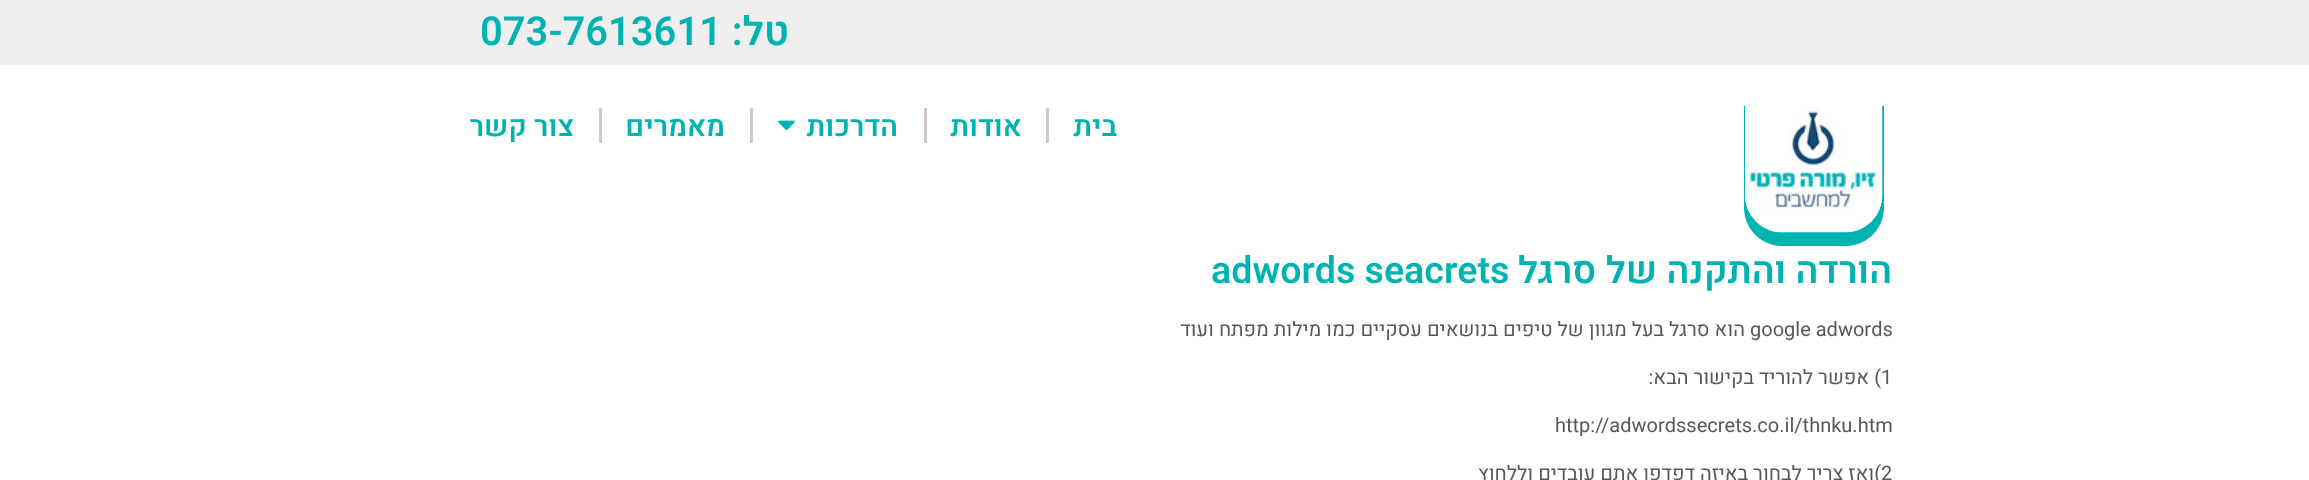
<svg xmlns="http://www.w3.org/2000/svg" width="2309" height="480">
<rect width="100%" height="100%" fill="#fff"/>
<rect width="2309" height="65" fill="#f0eeee"/>
<text x="789" y="45" style="font-family:Heebo;font-size:40px;font-weight:600;direction:rtl;fill:#00b3b3">טל:</text>
<text x="480" y="45" style="font-family:Heebo;font-size:40px;font-weight:600;fill:#00b3b3">073-7613611</text>
<path d="M1744 106v101c0 22 17 39 39 39h62c22 0 39-17 39-39v-101h-2v89c0 21-16 37-37 37h-63c-20 0-37-16-37-37v-89z" fill="#00b3b3"/>
<image x="1745" y="106" width="138" height="127" href="media/1.png"/>
<text x="1117" y="136" style="font-family:Heebo;font-size:29px;font-weight:600;direction:rtl;fill:#00b3b3">בית</text>
<rect x="1046" y="108" width="3" height="35" fill="#d1c9c9"/>
<text x="1022" y="136" style="font-family:Heebo;font-size:29px;font-weight:600;direction:rtl;fill:#00b3b3">אודות</text>
<rect x="924" y="108" width="3" height="35" fill="#d1c9c9"/>
<text x="898" y="136" style="font-family:Heebo;font-size:29px;font-weight:600;direction:rtl;fill:#00b3b3">הדרכות</text>
<image x="778" y="120" width="17" height="11" href="media/2.png"/>
<rect x="750" y="108" width="3" height="35" fill="#d1c9c9"/>
<text x="725" y="136" style="font-family:Heebo;font-size:29px;font-weight:600;direction:rtl;fill:#00b3b3">מאמרים</text>
<rect x="599" y="108" width="3" height="35" fill="#d1c9c9"/>
<text x="574" y="136" style="font-family:Heebo;font-size:29px;font-weight:600;direction:rtl;fill:#00b3b3">צור קשר</text>
<text x="1892" y="283" style="font-family:Heebo;font-size:37.5px;font-weight:600;direction:rtl;fill:#00b3b3">הורדה והתקנה של סרגל</text>
<text x="1211" y="283" style="font-family:Heebo;font-size:37.5px;font-weight:600;fill:#00b3b3">adwords seacrets</text>
<text x="1750" y="336" style="font-family:Heebo;font-size:20px;fill:#54595f">google adwords</text>
<text x="1745" y="336" style="font-family:Heebo;font-size:20px;direction:rtl;fill:#54595f">הוא סרגל בעל מגוון של טיפים בנושאים עסקיים כמו מילות מפתח ועוד</text>
<text x="1881" y="384" style="font-family:Heebo;font-size:20px;fill:#54595f">1</text>
<text x="1881" y="384" style="font-family:Heebo;font-size:20px;direction:rtl;fill:#54595f">) אפשר להוריד בקישור הבא:</text>
<text x="1555" y="432" style="font-family:Heebo;font-size:20px;fill:#54595f">http://adwordssecrets.co.il/thnku.htm</text>
<text x="1881" y="480" style="font-family:Heebo;font-size:20px;fill:#54595f">2</text>
<text x="1881" y="480" style="font-family:Heebo;font-size:20px;direction:rtl;fill:#54595f">)ואז צריך לבחור באיזה דפדפן אתם עובדים וללחוץ</text>
</svg>
